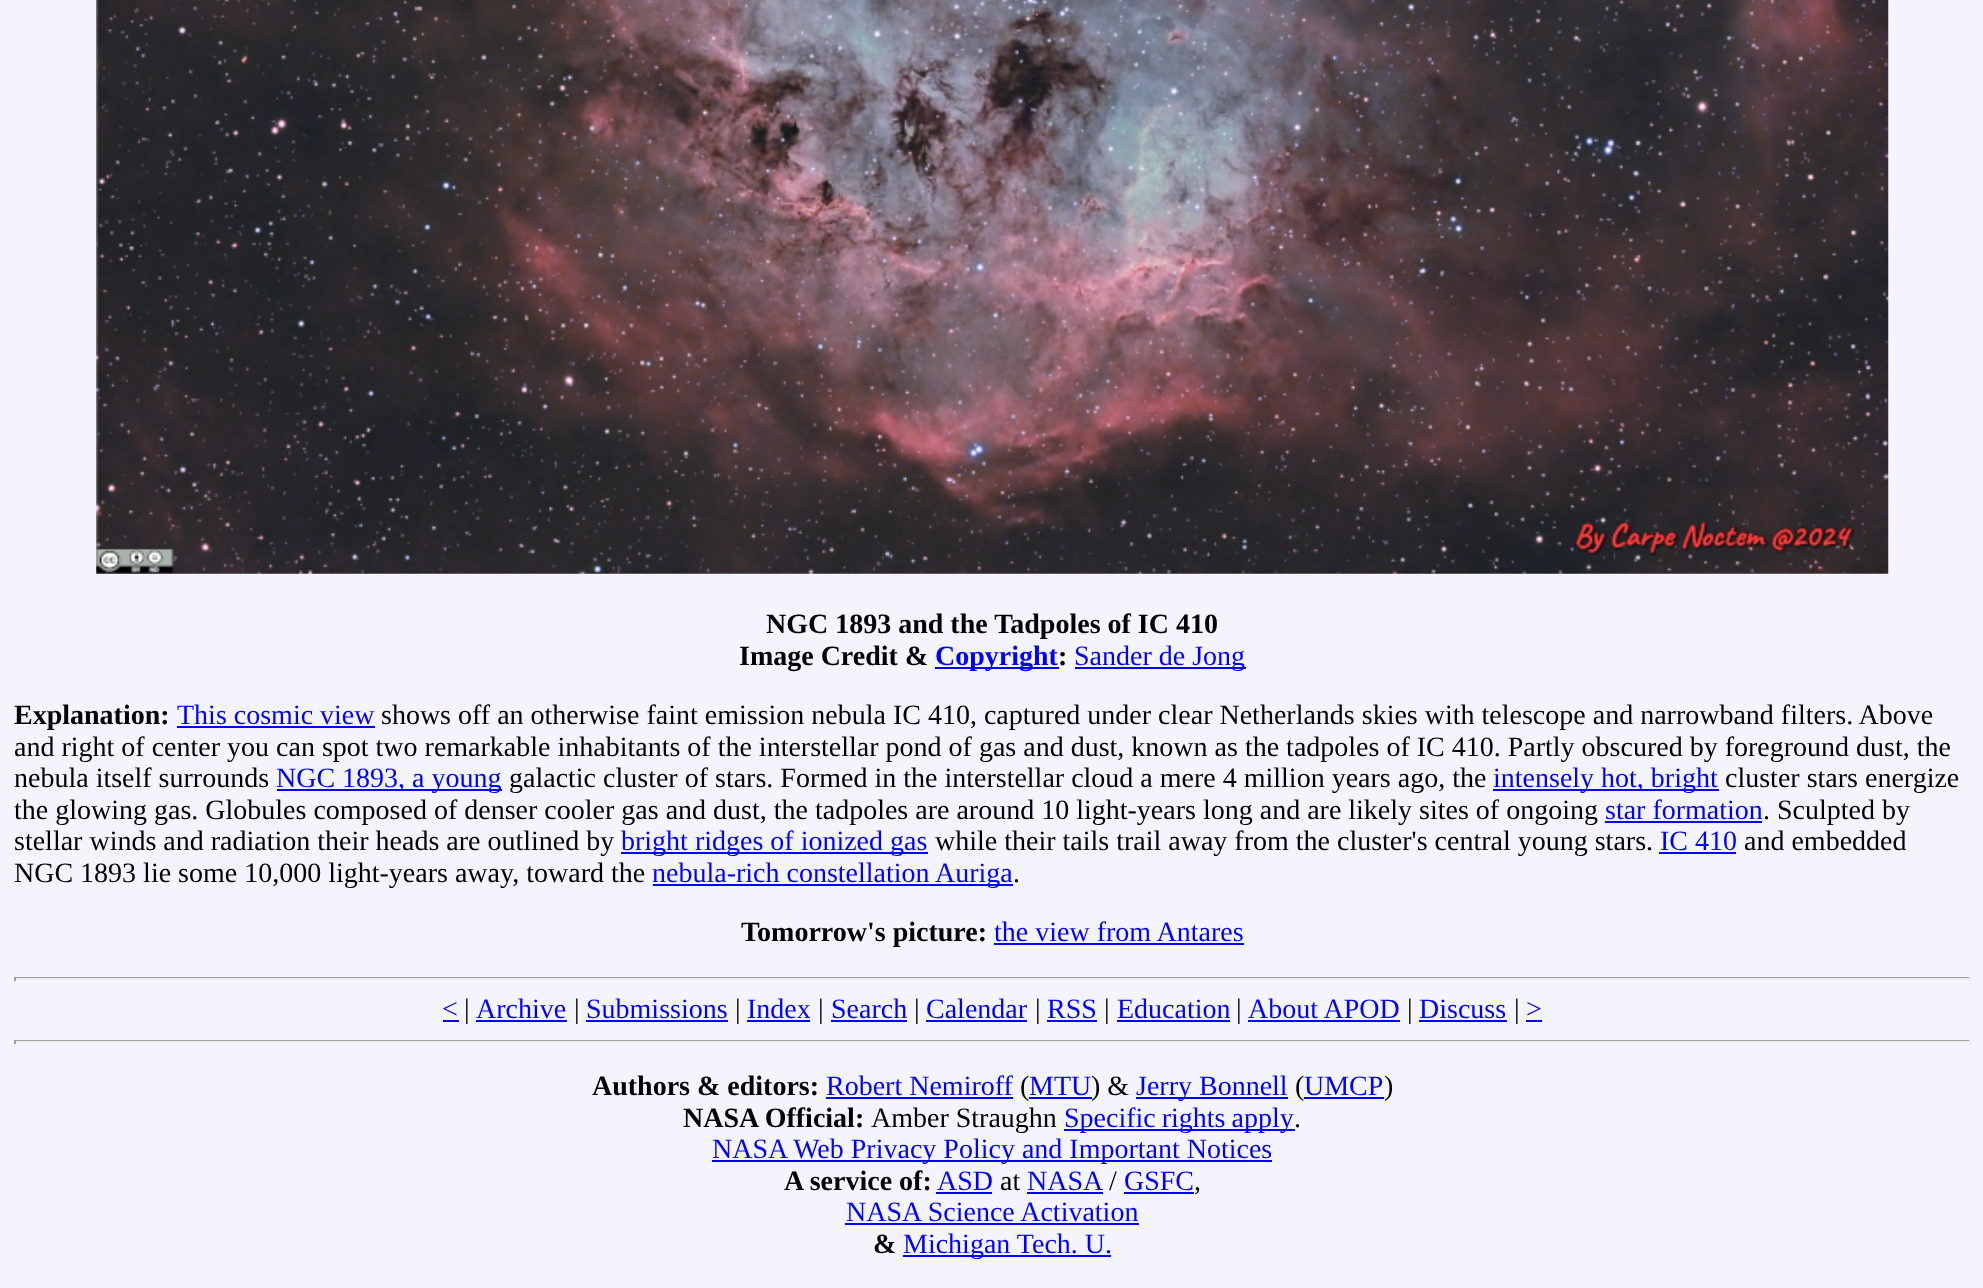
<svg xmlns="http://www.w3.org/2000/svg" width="1983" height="1288">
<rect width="100%" height="100%" fill="#f4f4ff"/>
<image x="96" y="0" width="1793" height="574" href="media/1.png"/>
<text x="766" y="633" style="font-family:Liberation Serif;font-size:28px;font-weight:bold;fill:#000">NGC 1893 and the Tadpoles of IC 410</text>
<text x="739" y="665" style="font-family:Liberation Serif;font-size:28px;font-weight:bold;fill:#000">Image Credit &amp;</text>
<rect x="935" y="667" width="124" height="2" fill="#00f"/>
<text x="935" y="665" style="font-family:Liberation Serif;font-size:28px;font-weight:bold;fill:#00f">Copyright</text>
<text x="1058" y="665" style="font-family:Liberation Serif;font-size:28px;font-weight:bold;fill:#000">:</text>
<rect x="1075" y="667" width="171" height="2" fill="#00f"/>
<text x="1074" y="665" style="font-family:Liberation Serif;font-size:28px;fill:#00f">Sander de Jong</text>
<text x="14" y="724" style="font-family:Liberation Serif;font-size:28px;font-weight:bold;fill:#000">Explanation:</text>
<text x="177" y="724" style="font-family:Liberation Serif;font-size:28px;fill:#00f">This cosmic view</text>
<rect x="177" y="726" width="198" height="2" fill="#00f"/>
<text x="381" y="724" style="font-family:Liberation Serif;font-size:28px;fill:#000">shows off an otherwise faint emission nebula IC 410, captured under clear Netherlands skies with telescope and narrowband filters. Above</text>
<text x="14" y="756" style="font-family:Liberation Serif;font-size:28px;fill:#000">and right of center you can spot two remarkable inhabitants of the interstellar pond of gas and dust, known as the tadpoles of IC 410. Partly obscured by foreground dust, the</text>
<text x="14" y="787" style="font-family:Liberation Serif;font-size:28px;fill:#000">nebula itself surrounds</text>
<rect x="277" y="789" width="225" height="2" fill="#00f"/>
<text x="276" y="787" style="font-family:Liberation Serif;font-size:28px;fill:#00f">NGC 1893, a young</text>
<text x="509" y="787" style="font-family:Liberation Serif;font-size:28px;fill:#000">galactic cluster of stars. Formed in the interstellar cloud a mere 4 million years ago, the</text>
<rect x="1493" y="789" width="226" height="2" fill="#00f"/>
<text x="1493" y="787" style="font-family:Liberation Serif;font-size:28px;fill:#00f">intensely hot, bright</text>
<text x="1725" y="787" style="font-family:Liberation Serif;font-size:28px;fill:#000">cluster stars energize</text>
<text x="14" y="819" style="font-family:Liberation Serif;font-size:28px;fill:#000">the glowing gas. Globules composed of denser cooler gas and dust, the tadpoles are around 10 light-years long and are likely sites of ongoing</text>
<text x="1605" y="819" style="font-family:Liberation Serif;font-size:28px;fill:#00f">star formation</text>
<rect x="1605" y="821" width="157" height="2" fill="#00f"/>
<text x="1763" y="819" style="font-family:Liberation Serif;font-size:28px;fill:#000">. Sculpted by</text>
<text x="14" y="850" style="font-family:Liberation Serif;font-size:28px;fill:#000">stellar winds and radiation their heads are outlined by</text>
<rect x="621" y="852" width="307" height="2" fill="#00f"/>
<text x="621" y="850" style="font-family:Liberation Serif;font-size:28px;fill:#00f">bright ridges of ionized gas</text>
<text x="935" y="850" style="font-family:Liberation Serif;font-size:28px;fill:#000">while their tails trail away from the cluster's central young stars.</text>
<text x="1660" y="850" style="font-family:Liberation Serif;font-size:28px;fill:#00f">IC 410</text>
<rect x="1659" y="852" width="77" height="2" fill="#00f"/>
<text x="1744" y="850" style="font-family:Liberation Serif;font-size:28px;fill:#000">and embedded</text>
<text x="14" y="882" style="font-family:Liberation Serif;font-size:28px;fill:#000">NGC 1893 lie some 10,000 light-years away, toward the</text>
<rect x="653" y="884" width="360" height="2" fill="#00f"/>
<text x="652" y="882" style="font-family:Liberation Serif;font-size:28px;fill:#00f">nebula-rich constellation Auriga</text>
<text x="1013" y="882" style="font-family:Liberation Serif;font-size:28px;fill:#000">.</text>
<text x="741" y="941" style="font-family:Liberation Serif;font-size:28px;font-weight:bold;fill:#000">Tomorrow's picture:</text>
<text x="994" y="941" style="font-family:Liberation Serif;font-size:28px;fill:#00f">the view from Antares</text>
<rect x="994" y="943" width="250" height="2" fill="#00f"/>
<rect x="14" y="977" width="1957" height="1" fill="#9f9f9f"/>
<rect x="1969" y="977" width="2" height="4" fill="#eee"/>
<rect x="14" y="978" width="1957" height="2" fill="#eee"/>
<rect x="14" y="977" width="2" height="4" fill="#9f9f9f"/>
<text x="442" y="1018" style="font-family:Liberation Serif;font-size:28px;fill:#00f">&lt;</text>
<rect x="443" y="1020" width="16" height="2" fill="#00f"/>
<text x="464" y="1018" style="font-family:Liberation Serif;font-size:28px;fill:#000">|</text>
<text x="476" y="1018" style="font-family:Liberation Serif;font-size:28px;fill:#00f">Archive</text>
<rect x="476" y="1020" width="91" height="2" fill="#00f"/>
<text x="574" y="1018" style="font-family:Liberation Serif;font-size:28px;fill:#000">|</text>
<text x="586" y="1018" style="font-family:Liberation Serif;font-size:28px;fill:#00f">Submissions</text>
<rect x="586" y="1020" width="142" height="2" fill="#00f"/>
<text x="735" y="1018" style="font-family:Liberation Serif;font-size:28px;fill:#000">|</text>
<text x="747" y="1018" style="font-family:Liberation Serif;font-size:28px;fill:#00f">Index</text>
<rect x="747" y="1020" width="63" height="2" fill="#00f"/>
<text x="818" y="1018" style="font-family:Liberation Serif;font-size:28px;fill:#000">|</text>
<text x="831" y="1018" style="font-family:Liberation Serif;font-size:28px;fill:#00f">Search</text>
<rect x="831" y="1020" width="76" height="2" fill="#00f"/>
<text x="914" y="1018" style="font-family:Liberation Serif;font-size:28px;fill:#000">|</text>
<text x="926" y="1018" style="font-family:Liberation Serif;font-size:28px;fill:#00f">Calendar</text>
<rect x="926" y="1020" width="101" height="2" fill="#00f"/>
<text x="1035" y="1018" style="font-family:Liberation Serif;font-size:28px;fill:#000">|</text>
<text x="1047" y="1018" style="font-family:Liberation Serif;font-size:28px;fill:#00f">RSS</text>
<rect x="1047" y="1020" width="50" height="2" fill="#00f"/>
<text x="1104" y="1018" style="font-family:Liberation Serif;font-size:28px;fill:#000">|</text>
<text x="1117" y="1018" style="font-family:Liberation Serif;font-size:28px;fill:#00f">Education</text>
<rect x="1117" y="1020" width="113" height="2" fill="#00f"/>
<text x="1236" y="1018" style="font-family:Liberation Serif;font-size:28px;fill:#000">|</text>
<text x="1248" y="1018" style="font-family:Liberation Serif;font-size:28px;fill:#00f">About APOD</text>
<rect x="1248" y="1020" width="152" height="2" fill="#00f"/>
<text x="1407" y="1018" style="font-family:Liberation Serif;font-size:28px;fill:#000">|</text>
<text x="1419" y="1018" style="font-family:Liberation Serif;font-size:28px;fill:#00f">Discuss</text>
<rect x="1419" y="1020" width="88" height="2" fill="#00f"/>
<text x="1514" y="1018" style="font-family:Liberation Serif;font-size:28px;fill:#000">|</text>
<text x="1526" y="1018" style="font-family:Liberation Serif;font-size:28px;fill:#00f">&gt;</text>
<rect x="1526" y="1020" width="16" height="2" fill="#00f"/>
<rect x="14" y="1040" width="1957" height="1" fill="#9f9f9f"/>
<rect x="1969" y="1040" width="2" height="4" fill="#eee"/>
<rect x="14" y="1041" width="1957" height="2" fill="#eee"/>
<rect x="14" y="1040" width="2" height="4" fill="#9f9f9f"/>
<text x="592" y="1095" style="font-family:Liberation Serif;font-size:28px;font-weight:bold;fill:#000">Authors &amp; editors:</text>
<text x="826" y="1095" style="font-family:Liberation Serif;font-size:28px;fill:#00f">Robert Nemiroff</text>
<rect x="826" y="1097" width="187" height="2" fill="#00f"/>
<text x="1020" y="1095" style="font-family:Liberation Serif;font-size:28px;fill:#000">(</text>
<text x="1029" y="1095" style="font-family:Liberation Serif;font-size:28px;fill:#00f">MTU</text>
<rect x="1029" y="1097" width="63" height="2" fill="#00f"/>
<text x="1091" y="1095" style="font-family:Liberation Serif;font-size:28px;fill:#000">) &amp;</text>
<rect x="1136" y="1097" width="152" height="2" fill="#00f"/>
<text x="1136" y="1095" style="font-family:Liberation Serif;font-size:28px;fill:#00f">Jerry Bonnell</text>
<text x="1295" y="1095" style="font-family:Liberation Serif;font-size:28px;fill:#000">(</text>
<text x="1304" y="1095" style="font-family:Liberation Serif;font-size:28px;fill:#00f">UMCP</text>
<rect x="1304" y="1097" width="80" height="2" fill="#00f"/>
<text x="1384" y="1095" style="font-family:Liberation Serif;font-size:28px;fill:#000">)</text>
<text x="683" y="1127" style="font-family:Liberation Serif;font-size:28px;font-weight:bold;fill:#000">NASA Official:</text>
<text x="871" y="1127" style="font-family:Liberation Serif;font-size:28px;fill:#000">Amber Straughn</text>
<rect x="1064" y="1129" width="231" height="2" fill="#00f"/>
<text x="1064" y="1127" word-spacing="-1" style="font-family:Liberation Serif;font-size:28px;fill:#00f">Specific rights apply</text>
<text x="1294" y="1127" style="font-family:Liberation Serif;font-size:28px;fill:#000">.</text>
<rect x="712" y="1160" width="560" height="2" fill="#00f"/>
<text x="712" y="1158" style="font-family:Liberation Serif;font-size:28px;fill:#00f">NASA Web Privacy Policy and Important Notices</text>
<text x="784" y="1190" style="font-family:Liberation Serif;font-size:28px;font-weight:bold;fill:#000">A service of:</text>
<text x="937" y="1190" style="font-family:Liberation Serif;font-size:28px;fill:#00f">ASD</text>
<rect x="936" y="1192" width="56" height="2" fill="#00f"/>
<text x="1000" y="1190" style="font-family:Liberation Serif;font-size:28px;fill:#000">at</text>
<text x="1027" y="1190" style="font-family:Liberation Serif;font-size:28px;fill:#00f">NASA</text>
<rect x="1027" y="1192" width="76" height="2" fill="#00f"/>
<text x="1109" y="1190" style="font-family:Liberation Serif;font-size:28px;fill:#000">/</text>
<text x="1124" y="1190" style="font-family:Liberation Serif;font-size:28px;fill:#00f">GSFC</text>
<rect x="1124" y="1192" width="70" height="2" fill="#00f"/>
<text x="1194" y="1190" style="font-family:Liberation Serif;font-size:28px;fill:#000">,</text>
<text x="846" y="1221" style="font-family:Liberation Serif;font-size:28px;fill:#00f">NASA Science Activation</text>
<rect x="845" y="1223" width="294" height="2" fill="#00f"/>
<text x="873" y="1253" style="font-family:Liberation Serif;font-size:28px;font-weight:bold;fill:#000">&amp;</text>
<rect x="903" y="1255" width="208" height="2" fill="#00f"/>
<text x="903" y="1253" style="font-family:Liberation Serif;font-size:28px;fill:#00f">Michigan Tech. U.</text>
</svg>
